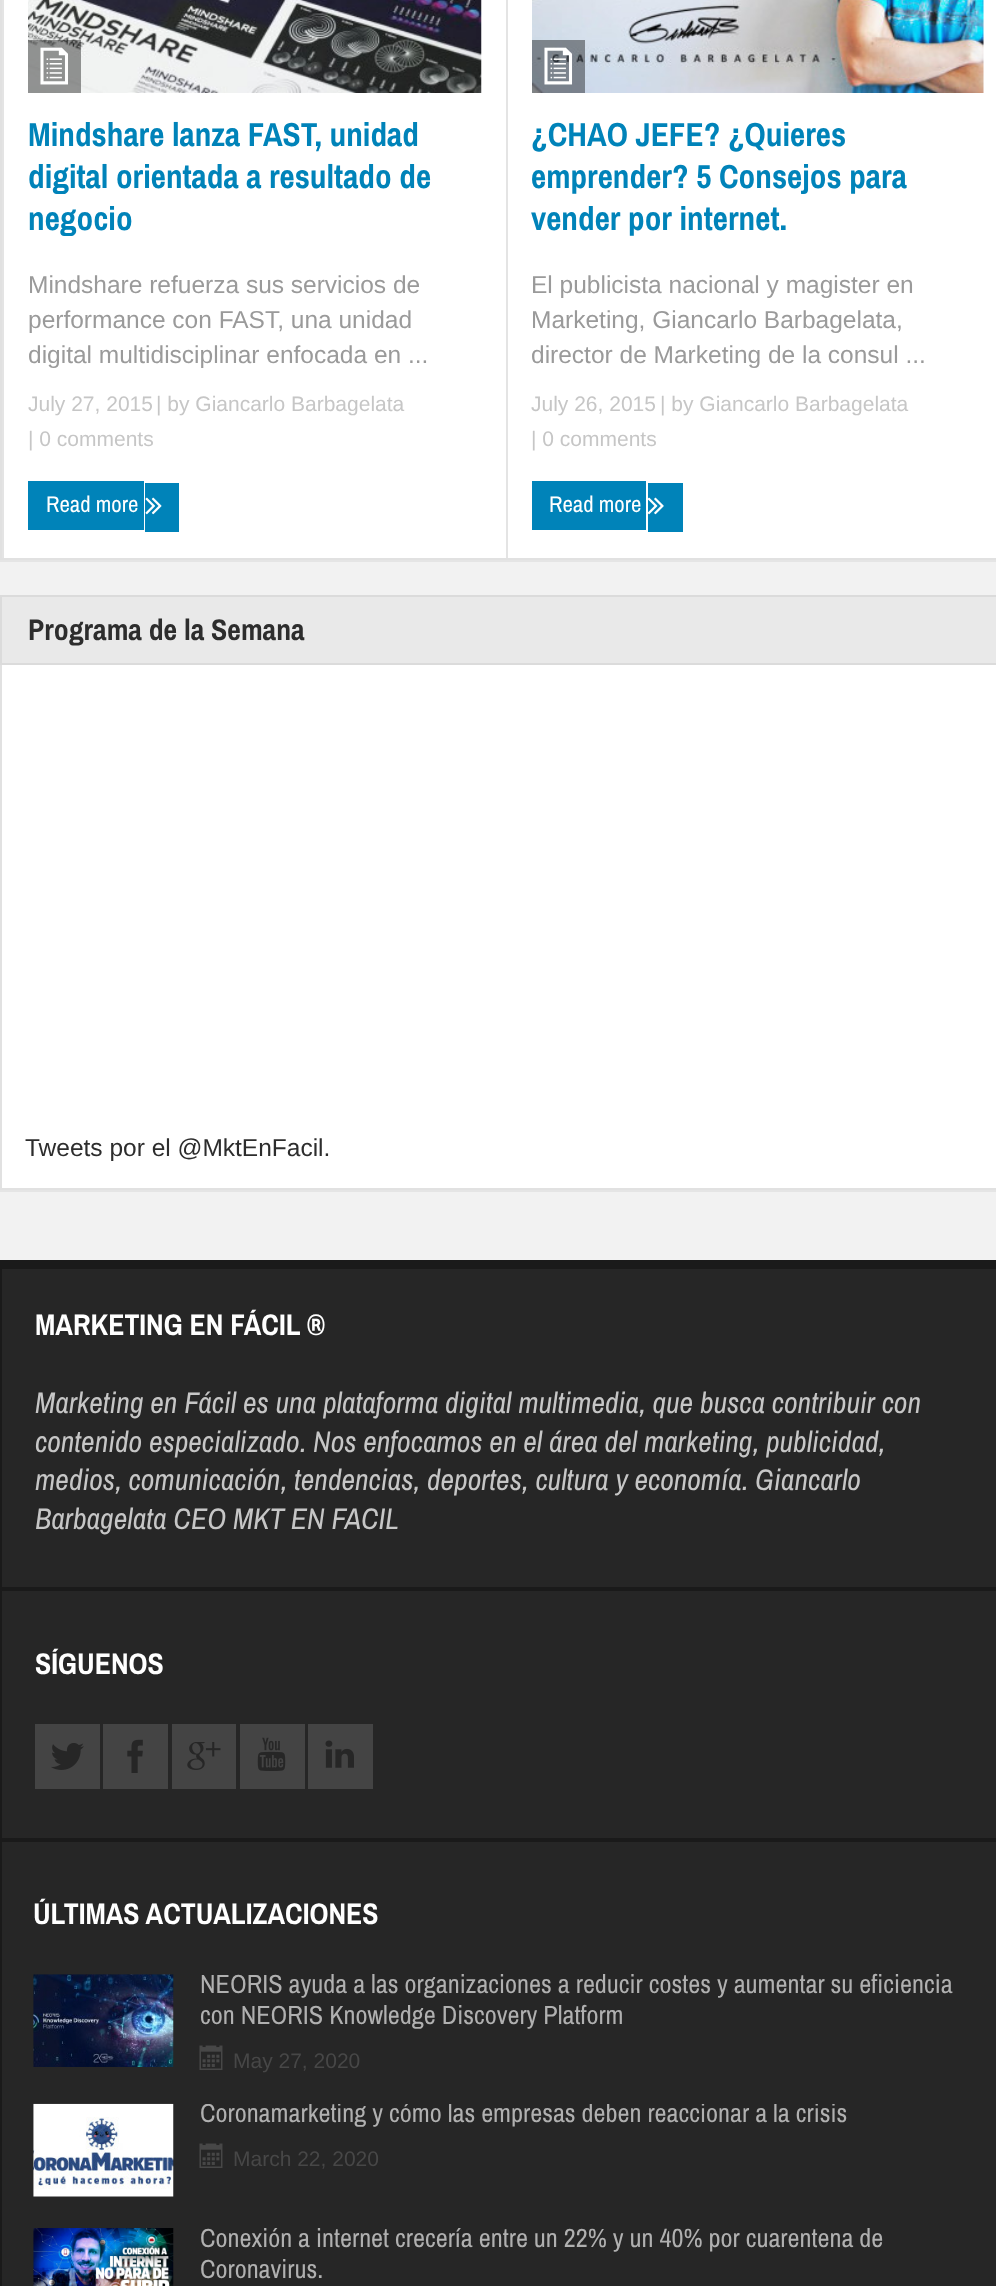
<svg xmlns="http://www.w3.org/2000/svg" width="996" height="2286">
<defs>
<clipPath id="clip1"><rect x="33" y="2104" width="944" height="99"/></clipPath>
</defs>
<rect width="100%" height="100%" fill="#f2f2f2"/>
<path d="M0 560v2h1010v-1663v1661z" fill="#e5e5e5"/>
<rect x="4" width="992" height="558" fill="#fff"/>
<rect x="1" y="-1" width="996" height="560" fill="none" stroke="#e1e1e1" stroke-width="2"/>
<rect x="2" width="2" height="558" fill="#e4e4e4"/>
<image x="28" y="0" width="454" height="93" href="media/1.png"/>
<rect x="28" y="40" width="53" height="53" fill="#00000066"/>
<image x="40" y="47" width="28" height="38" href="media/2.png"/>
<text x="28" y="146" style="font-family:Archivo Narrow;font-size:33.25px;font-weight:bold;fill:#0083b9">Mindshare lanza FAST, unidad</text>
<text x="28" y="188" style="font-family:Archivo Narrow;font-size:33.25px;font-weight:bold;fill:#0083b9">digital orientada a resultado de</text>
<text x="28" y="230" style="font-family:Archivo Narrow;font-size:33.25px;font-weight:bold;fill:#0083b9">negocio</text>
<text x="28" y="293" style="font-family:Liberation Sans;font-size:24.5px;fill:#9a9a9a">Mindshare refuerza sus servicios de</text>
<text x="28" y="328" style="font-family:Liberation Sans;font-size:24.5px;fill:#9a9a9a">performance con FAST, una unidad</text>
<text x="28" y="363" style="font-family:Liberation Sans;font-size:24.5px;fill:#9a9a9a">digital multidisciplinar enfocada en ...</text>
<text x="28" y="411" style="font-family:Liberation Sans;font-size:21px;fill:#c6c6c6">July 27, 2015</text>
<text x="156" y="411" style="font-family:Liberation Sans;font-size:21px;fill:#c6c6c6">| by Giancarlo Barbagelata</text>
<text x="28" y="446" style="font-family:Liberation Sans;font-size:21px;fill:#c6c6c6">| 0 comments</text>
<rect x="28" y="481" width="116" height="49" fill="#0083b9"/>
<text x="46" y="512" style="font-family:Archivo Narrow;font-size:22.75px;fill:#fff">Read more</text>
<rect x="145" y="483" width="34" height="49" fill="#0083b9"/>
<image x="145" y="497" width="17" height="18" href="media/3.png"/>
<rect x="506" width="2" height="558" fill="#e4e4e4"/>
<image x="532" y="0" width="452" height="93" href="media/4.png"/>
<rect x="532" y="40" width="53" height="53" fill="#00000066"/>
<image x="544" y="47" width="29" height="38" href="media/5.png"/>
<text x="531" y="146" style="font-family:Archivo Narrow;font-size:33.25px;font-weight:bold;fill:#0083b9">¿CHAO JEFE? ¿Quieres</text>
<text x="531" y="188" style="font-family:Archivo Narrow;font-size:33.25px;font-weight:bold;fill:#0083b9">emprender? 5 Consejos para</text>
<text x="531" y="230" style="font-family:Archivo Narrow;font-size:33.25px;font-weight:bold;fill:#0083b9">vender por internet.</text>
<text x="531" y="293" style="font-family:Liberation Sans;font-size:24.5px;fill:#9a9a9a">El publicista nacional y magister en</text>
<text x="531" y="328" style="font-family:Liberation Sans;font-size:24.5px;fill:#9a9a9a">Marketing, Giancarlo Barbagelata,</text>
<text x="531" y="363" style="font-family:Liberation Sans;font-size:24.5px;fill:#9a9a9a">director de Marketing de la consul ...</text>
<text x="531" y="411" style="font-family:Liberation Sans;font-size:21px;fill:#c6c6c6">July 26, 2015</text>
<text x="660" y="411" style="font-family:Liberation Sans;font-size:21px;fill:#c6c6c6">| by Giancarlo Barbagelata</text>
<text x="531" y="446" style="font-family:Liberation Sans;font-size:21px;fill:#c6c6c6">| 0 comments</text>
<rect x="532" y="481" width="114" height="49" fill="#0083b9"/>
<text x="549" y="512" style="font-family:Archivo Narrow;font-size:22.75px;fill:#fff">Read more</text>
<rect x="648" y="483" width="35" height="49" fill="#0083b9"/>
<image x="648" y="497" width="16" height="18" href="media/6.png"/>
<path d="M0 1190v2h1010v-595v593z" fill="#e5e5e5"/>
<rect x="2" y="665" width="994" height="523" fill="#fff"/>
<rect x="1" y="596" width="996" height="593" fill="none" stroke="#e1e1e1" stroke-width="2"/>
<rect x="1" y="596" width="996" height="68" fill="#e9e9e9" stroke="#dbdbdb" stroke-width="2"/>
<text x="28" y="640" style="font-family:Archivo Narrow;font-size:29.75px;font-weight:bold;fill:#2d2d2d">Programa de la Semana</text>
<text x="25" y="1156" style="font-family:Liberation Sans;font-size:24.5px;fill:#2d2d2d">Tweets por el @MktEnFacil.</text>
<rect x="2" y="1269" width="994" height="1017" fill="#262626"/>
<rect y="1260" width="996" height="9" fill="#1a1a1a"/>
<rect y="1269" width="2" height="1017" fill="#1a1a1a"/>
<text x="35" y="1335" style="font-family:Archivo Narrow;font-size:29.75px;font-weight:bold;fill:#fff">MARKETING EN FÁCIL ®</text>
<text x="35" y="1413" style="font-family:Archivo Narrow;font-size:29.75px;font-style:italic;fill:#c6c6c6">Marketing en Fácil es una plataforma digital multimedia, que busca contribuir con</text>
<text x="35" y="1452" style="font-family:Archivo Narrow;font-size:29.75px;font-style:italic;fill:#c6c6c6">contenido especializado. Nos enfocamos en el área del marketing, publicidad,</text>
<text x="35" y="1490" style="font-family:Archivo Narrow;font-size:29.75px;font-style:italic;fill:#c6c6c6">medios, comunicación, tendencias, deportes, cultura y economía. Giancarlo</text>
<text x="35" y="1529" style="font-family:Archivo Narrow;font-size:29.75px;font-style:italic;fill:#c6c6c6">Barbagelata CEO MKT EN FACIL</text>
<rect x="2" y="1587" width="994" height="4" fill="#1a1a1a"/>
<text x="35" y="1674" style="font-family:Archivo Narrow;font-size:29.75px;font-weight:bold;fill:#fff">SÍGUENOS</text>
<rect x="35" y="1724" width="65" height="65" fill="#444"/>
<image x="51" y="1743" width="33" height="27" href="media/7.png"/>
<rect x="103" y="1724" width="65" height="65" fill="#444"/>
<image x="127" y="1739" width="16" height="34" href="media/8.png"/>
<rect x="172" y="1724" width="64" height="65" fill="#444"/>
<image x="187" y="1742" width="34" height="28" href="media/9.png"/>
<rect x="240" y="1724" width="65" height="65" fill="#444"/>
<image x="257" y="1737" width="29" height="34" href="media/10.png"/>
<rect x="308" y="1724" width="65" height="65" fill="#444"/>
<image x="325" y="1740" width="29" height="28" href="media/11.png"/>
<rect x="2" y="1838" width="994" height="4" fill="#1a1a1a"/>
<text x="33" y="1924" style="font-family:Archivo Narrow;font-size:29.75px;font-weight:bold;fill:#fff">ÚLTIMAS ACTUALIZACIONES</text>
<image x="33" y="1974" width="141" height="93" href="media/12.png"/>
<text x="200" y="1993" style="font-family:Archivo Narrow;font-size:26.25px;fill:#b0b0b0">NEORIS ayuda a las organizaciones a reducir costes y aumentar su eficiencia</text>
<text x="200" y="2024" style="font-family:Archivo Narrow;font-size:26.25px;fill:#b0b0b0">con NEORIS Knowledge Discovery Platform</text>
<image x="199" y="2045" width="24" height="25" href="media/13.png"/>
<text x="233" y="2068" style="font-family:Liberation Sans;font-size:21px;fill:#474747">May 27, 2020</text>
<image x="33" y="2103" width="141" height="94" href="media/14.png"/>
<g clip-path="url(#clip1)">
<text x="200" y="2122" style="font-family:Archivo Narrow;font-size:26.25px;fill:#b0b0b0">Coronamarketing y cómo las empresas deben reaccionar a la crisis</text>
</g>
<image x="199" y="2143" width="24" height="25" href="media/13.png"/>
<text x="233" y="2166" style="font-family:Liberation Sans;font-size:21px;fill:#474747">March 22, 2020</text>
<image x="33" y="2228" width="141" height="58" href="media/15.png"/>
<text x="200" y="2247" style="font-family:Archivo Narrow;font-size:26.25px;fill:#b0b0b0">Conexión a internet crecería entre un 22% y un 40% por cuarentena de</text>
<text x="200" y="2278" style="font-family:Archivo Narrow;font-size:26.25px;fill:#b0b0b0">Coronavirus.</text>
</svg>
